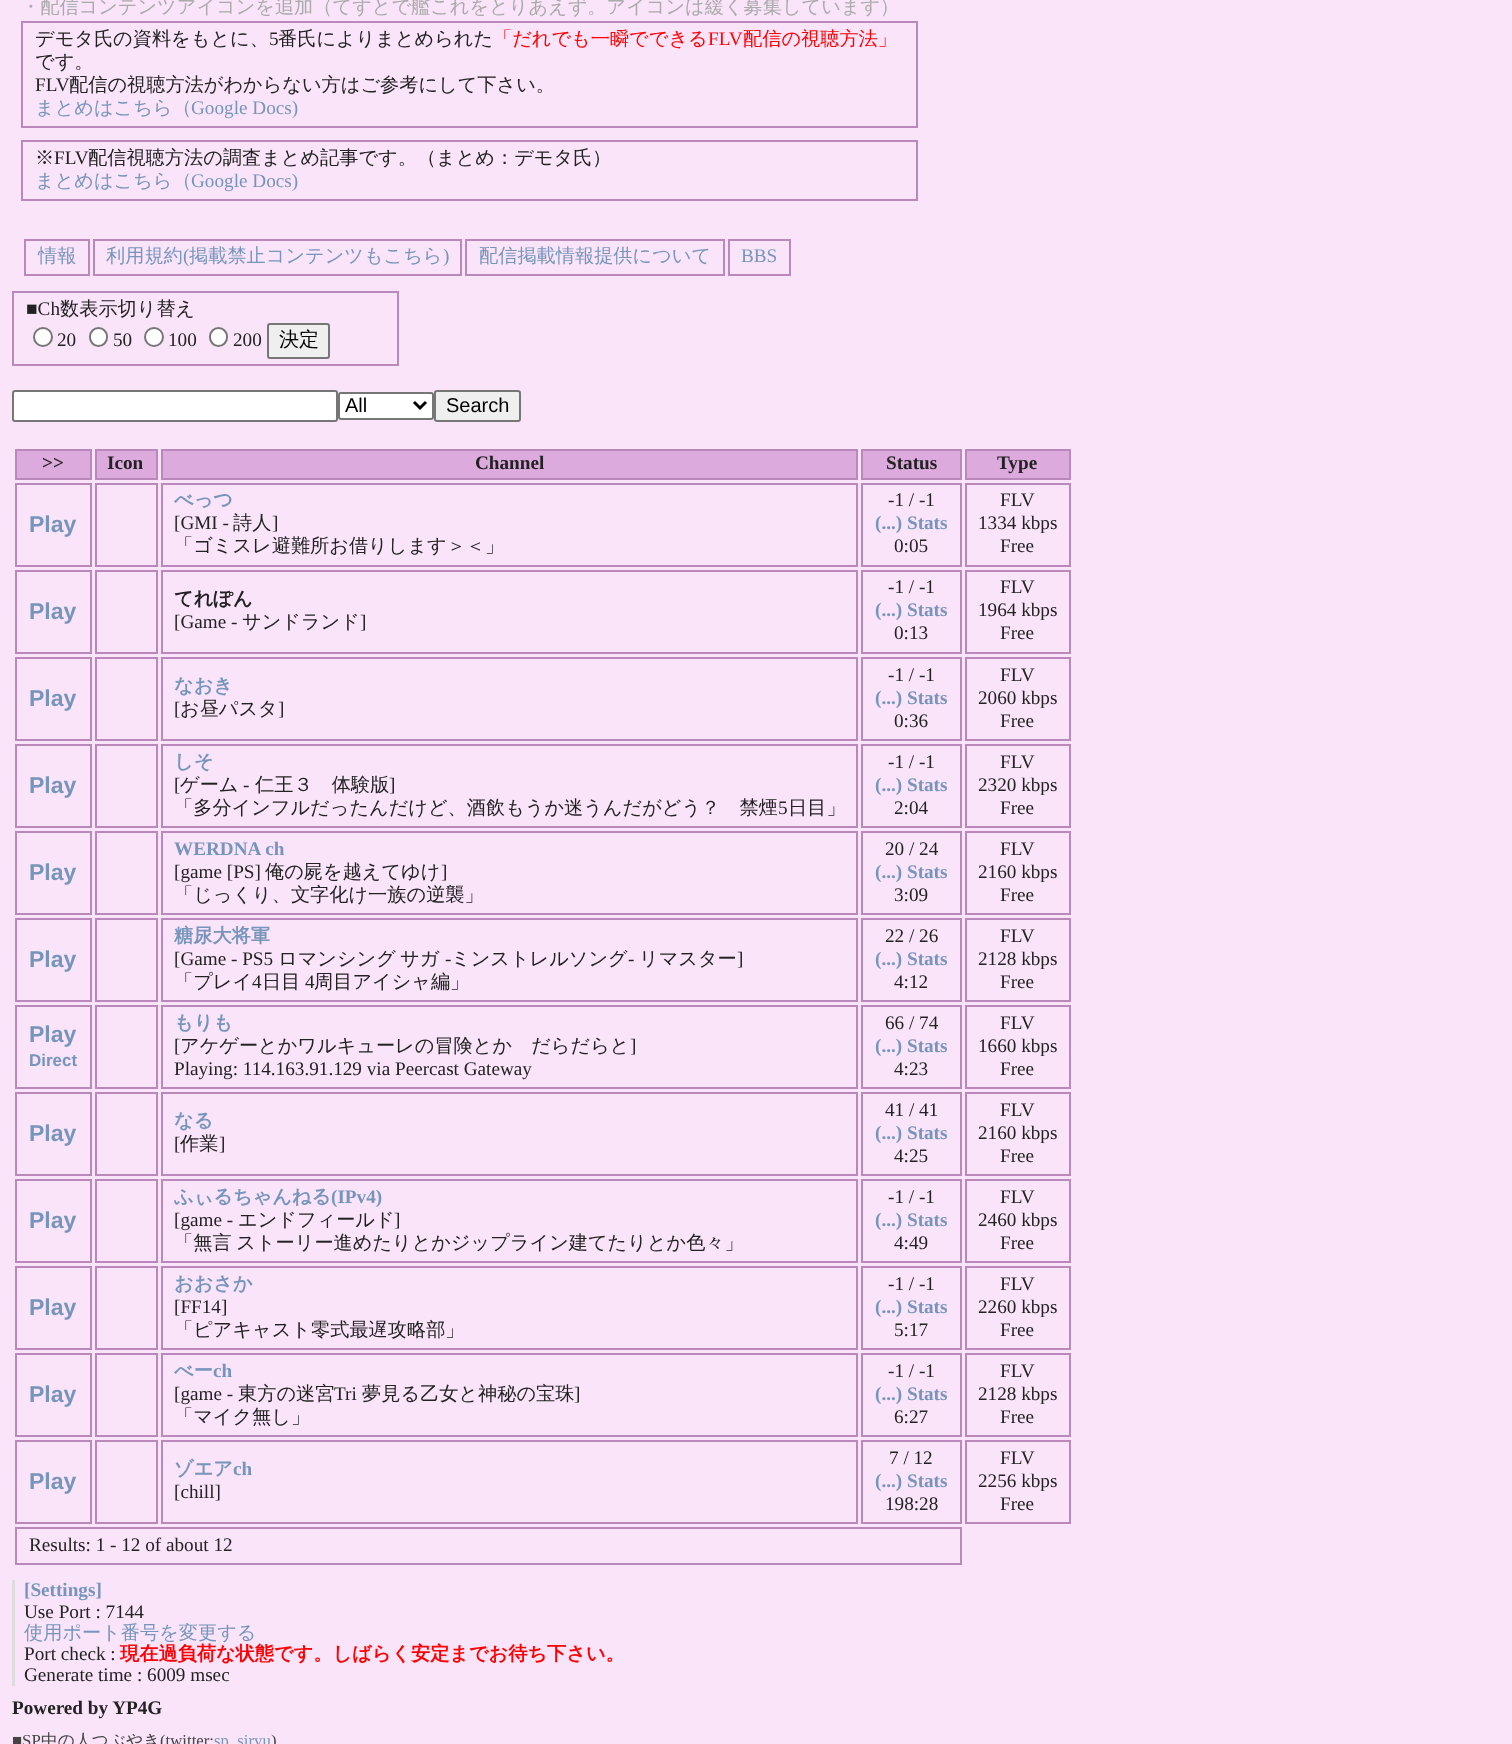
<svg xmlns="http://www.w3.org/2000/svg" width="1512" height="1744">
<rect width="100%" height="100%" fill="#fae4fa"/>
<text x="21" y="13" style="font-family:WenQuanYi Zen Hei;font-size:19.2px;font-weight:500;fill:#aaa">・配信コンテンツアイコンを追加（てすとで艦これをとりあえず。アイコンは緩く募集しています）</text>
<rect x="22" y="22" width="895" height="105" fill="none" stroke="#b8b" stroke-width="2"/>
<text x="35" y="45" style="font-family:WenQuanYi Zen Hei;font-size:19.2px;font-weight:500;fill:#222">デモタ氏の資料をもとに、</text>
<text x="269" y="45" style="font-family:Liberation Serif;font-size:19.2px;fill:#222">5</text>
<text x="278" y="45" style="font-family:WenQuanYi Zen Hei;font-size:19.2px;font-weight:500;fill:#222">番氏によりまとめられた</text>
<text x="493" y="45" style="font-family:WenQuanYi Zen Hei;font-size:19.2px;font-weight:500;fill:#f00">「だれでも一瞬でできる</text>
<text x="708" y="45" style="font-family:Liberation Serif;font-size:19.2px;fill:#f00">FLV</text>
<text x="743" y="45" style="font-family:WenQuanYi Zen Hei;font-size:19.2px;font-weight:500;fill:#f00">配信の視聴方法」</text>
<text x="35" y="68" style="font-family:WenQuanYi Zen Hei;font-size:19.2px;font-weight:500;fill:#222">です。</text>
<text x="35" y="91" style="font-family:Liberation Serif;font-size:19.2px;fill:#222">FLV</text>
<text x="69" y="91" style="font-family:WenQuanYi Zen Hei;font-size:19.2px;font-weight:500;fill:#222">配信の視聴方法がわからない方はご参考にして下さい。</text>
<text x="35" y="114" style="font-family:WenQuanYi Zen Hei;font-size:19.2px;font-weight:500;fill:#7795bb">まとめはこちら（</text>
<text x="191" y="114" style="font-family:Liberation Serif;font-size:19.2px;fill:#7795bb">Google Docs)</text>
<rect x="22" y="141" width="895" height="59" fill="none" stroke="#b8b" stroke-width="2"/>
<text x="35" y="164" style="font-family:WenQuanYi Zen Hei;font-size:19.2px;font-weight:500;fill:#222">※</text>
<text x="54" y="164" style="font-family:Liberation Serif;font-size:19.2px;fill:#222">FLV</text>
<text x="88" y="164" style="font-family:WenQuanYi Zen Hei;font-size:19.2px;font-weight:500;fill:#222">配信視聴方法の調査まとめ記事です。（まとめ：デモタ氏）</text>
<text x="35" y="187" style="font-family:WenQuanYi Zen Hei;font-size:19.2px;font-weight:500;fill:#7795bb">まとめはこちら（</text>
<text x="191" y="187" style="font-family:Liberation Serif;font-size:19.2px;fill:#7795bb">Google Docs)</text>
<rect x="25" y="240" width="64" height="35" fill="none" stroke="#b8b" stroke-width="2"/>
<text x="38" y="262" style="font-family:WenQuanYi Zen Hei;font-size:19.2px;font-weight:500;fill:#7795bb">情報</text>
<rect x="94" y="240" width="367" height="35" fill="none" stroke="#b8b" stroke-width="2"/>
<text x="106" y="262" style="font-family:WenQuanYi Zen Hei;font-size:19.2px;font-weight:500;fill:#7795bb">利用規約</text>
<text x="183" y="262" style="font-family:Liberation Serif;font-size:19.2px;fill:#7795bb">(</text>
<text x="189" y="262" style="font-family:WenQuanYi Zen Hei;font-size:19.2px;font-weight:500;fill:#7795bb">掲載禁止コンテンツもこちら</text>
<text x="443" y="262" style="font-family:Liberation Serif;font-size:19.2px;fill:#7795bb">)</text>
<rect x="466" y="240" width="258" height="35" fill="none" stroke="#b8b" stroke-width="2"/>
<text x="479" y="262" style="font-family:WenQuanYi Zen Hei;font-size:19.2px;font-weight:500;fill:#7795bb">配信掲載情報提供について</text>
<rect x="729" y="240" width="61" height="35" fill="none" stroke="#b8b" stroke-width="2"/>
<text x="741" y="262" style="font-family:Liberation Serif;font-size:19.2px;fill:#7795bb">BBS</text>
<rect x="13" y="292" width="385" height="73" fill="none" stroke="#b8b" stroke-width="2"/>
<text x="26" y="315" style="font-family:Liberation Serif;font-size:19.2px;fill:#222">■Ch</text>
<text x="60" y="315" style="font-family:WenQuanYi Zen Hei;font-size:19.2px;font-weight:500;fill:#222">数表示切り替え</text>
<circle cx="43" cy="337" r="9" fill="#fff" stroke="#767676" stroke-width="2"/>
<text x="57" y="346" style="font-family:Liberation Serif;font-size:19.2px;fill:#222">20</text>
<rect x="90" y="328" width="17" height="18" rx="8.5" fill="#fff" stroke="#767676" stroke-width="2"/>
<text x="113" y="346" style="font-family:Liberation Serif;font-size:19.2px;fill:#222">50</text>
<circle cx="154" cy="337" r="9" fill="#fff" stroke="#767676" stroke-width="2"/>
<text x="168" y="346" style="font-family:Liberation Serif;font-size:19.2px;fill:#222">100</text>
<rect x="210" y="328" width="17" height="18" rx="8.5" fill="#fff" stroke="#767676" stroke-width="2"/>
<text x="233" y="346" style="font-family:Liberation Serif;font-size:19.2px;fill:#222">200</text>
<rect x="268" y="324" width="61" height="34" rx="2" fill="#efefef" stroke="#767676" stroke-width="2"/>
<text x="279" y="346" style="font-family:WenQuanYi Zen Hei;font-size:20px;font-weight:500;fill:#000">決定</text>
<rect x="13" y="391" width="324" height="30" rx="2" fill="#fff" stroke="#767676" stroke-width="2"/>
<rect x="339" y="393" width="94" height="26" rx="2" fill="#fff" stroke="#767676" stroke-width="2"/>
<path d="M414 402l6 6l6-6" fill="none" stroke="#000" stroke-width="3"/>
<text x="345" y="412" style="font-family:Liberation Sans;font-size:20px;fill:#000">All</text>
<rect x="435" y="391" width="85" height="30" rx="2" fill="#efefef" stroke="#767676" stroke-width="2"/>
<text x="446" y="412" style="font-family:Liberation Sans;font-size:20px;fill:#000">Search</text>
<rect x="16" y="450" width="75" height="29" fill="#dad" stroke="#b8b" stroke-width="2"/>
<text x="42" y="469" style="font-family:Liberation Serif;font-size:19.2px;font-weight:bold;fill:#222">&gt;&gt;</text>
<rect x="96" y="450" width="61" height="29" fill="#dad" stroke="#b8b" stroke-width="2"/>
<text x="107" y="469" style="font-family:Liberation Serif;font-size:19.2px;font-weight:bold;fill:#222">Icon</text>
<rect x="162" y="450" width="695" height="29" fill="#dad" stroke="#b8b" stroke-width="2"/>
<text x="475" y="469" style="font-family:Liberation Serif;font-size:19.2px;font-weight:bold;fill:#222">Channel</text>
<rect x="862" y="450" width="99" height="29" fill="#dad" stroke="#b8b" stroke-width="2"/>
<text x="886" y="469" style="font-family:Liberation Serif;font-size:19.2px;font-weight:bold;fill:#222">Status</text>
<rect x="966" y="450" width="104" height="29" fill="#dad" stroke="#b8b" stroke-width="2"/>
<text x="997" y="469" style="font-family:Liberation Serif;font-size:19.2px;font-weight:bold;fill:#222">Type</text>
<rect x="16" y="484" width="75" height="82" fill="none" stroke="#b8b" stroke-width="2"/>
<text x="29" y="532" style="font-family:Liberation Sans;font-size:23px;font-weight:bold;fill:#7795bb">Play</text>
<rect x="96" y="484" width="61" height="82" fill="none" stroke="#b8b" stroke-width="2"/>
<rect x="162" y="484" width="695" height="82" fill="none" stroke="#b8b" stroke-width="2"/>
<text x="174" y="506" style="font-family:WenQuanYi Zen Hei;font-size:19.2px;font-weight:bold;fill:#7795bb">べっつ</text>
<text x="174" y="529" style="font-family:Liberation Serif;font-size:19.2px;fill:#222">[GMI -</text>
<text x="233" y="529" style="font-family:WenQuanYi Zen Hei;font-size:19.2px;font-weight:500;fill:#222">詩人</text>
<text x="272" y="529" style="font-family:Liberation Serif;font-size:19.2px;fill:#222">]</text>
<text x="174" y="552" style="font-family:WenQuanYi Zen Hei;font-size:19.2px;font-weight:500;fill:#222">「ゴミスレ避難所お借りします＞＜」</text>
<rect x="862" y="484" width="99" height="82" fill="none" stroke="#b8b" stroke-width="2"/>
<text x="888" y="506" style="font-family:Liberation Serif;font-size:19.2px;fill:#222">-1 / -1</text>
<text x="875" y="529" style="font-family:Liberation Serif;font-size:19.2px;font-weight:bold;fill:#7795bb">(...) Stats</text>
<text x="894" y="552" style="font-family:Liberation Serif;font-size:19.2px;fill:#222">0:05</text>
<rect x="966" y="484" width="104" height="82" fill="none" stroke="#b8b" stroke-width="2"/>
<text x="1000" y="506" style="font-family:Liberation Serif;font-size:19.2px;fill:#222">FLV</text>
<text x="978" y="529" style="font-family:Liberation Serif;font-size:19.2px;fill:#222">1334 kbps</text>
<text x="1000" y="552" style="font-family:Liberation Serif;font-size:19.2px;fill:#222">Free</text>
<rect x="16" y="571" width="75" height="82" fill="none" stroke="#b8b" stroke-width="2"/>
<text x="29" y="619" style="font-family:Liberation Sans;font-size:23px;font-weight:bold;fill:#7795bb">Play</text>
<rect x="96" y="571" width="61" height="82" fill="none" stroke="#b8b" stroke-width="2"/>
<rect x="162" y="571" width="695" height="82" fill="none" stroke="#b8b" stroke-width="2"/>
<text x="174" y="605" style="font-family:WenQuanYi Zen Hei;font-size:19.2px;font-weight:bold;fill:#222">てれぽん</text>
<text x="174" y="628" style="font-family:Liberation Serif;font-size:19.2px;fill:#222">[Game -</text>
<text x="242" y="628" style="font-family:WenQuanYi Zen Hei;font-size:19.2px;font-weight:500;fill:#222">サンドランド</text>
<text x="360" y="628" style="font-family:Liberation Serif;font-size:19.2px;fill:#222">]</text>
<rect x="862" y="571" width="99" height="82" fill="none" stroke="#b8b" stroke-width="2"/>
<text x="888" y="593" style="font-family:Liberation Serif;font-size:19.2px;fill:#222">-1 / -1</text>
<text x="875" y="616" style="font-family:Liberation Serif;font-size:19.2px;font-weight:bold;fill:#7795bb">(...) Stats</text>
<text x="894" y="639" style="font-family:Liberation Serif;font-size:19.2px;fill:#222">0:13</text>
<rect x="966" y="571" width="104" height="82" fill="none" stroke="#b8b" stroke-width="2"/>
<text x="1000" y="593" style="font-family:Liberation Serif;font-size:19.2px;fill:#222">FLV</text>
<text x="978" y="616" style="font-family:Liberation Serif;font-size:19.2px;fill:#222">1964 kbps</text>
<text x="1000" y="639" style="font-family:Liberation Serif;font-size:19.2px;fill:#222">Free</text>
<rect x="16" y="658" width="75" height="82" fill="none" stroke="#b8b" stroke-width="2"/>
<text x="29" y="706" style="font-family:Liberation Sans;font-size:23px;font-weight:bold;fill:#7795bb">Play</text>
<rect x="96" y="658" width="61" height="82" fill="none" stroke="#b8b" stroke-width="2"/>
<rect x="162" y="658" width="695" height="82" fill="none" stroke="#b8b" stroke-width="2"/>
<text x="174" y="692" style="font-family:WenQuanYi Zen Hei;font-size:19.2px;font-weight:bold;fill:#7795bb">なおき</text>
<text x="174" y="715" style="font-family:Liberation Serif;font-size:19.2px;fill:#222">[</text>
<text x="180" y="715" style="font-family:WenQuanYi Zen Hei;font-size:19.2px;font-weight:500;fill:#222">お昼パスタ</text>
<text x="278" y="715" style="font-family:Liberation Serif;font-size:19.2px;fill:#222">]</text>
<rect x="862" y="658" width="99" height="82" fill="none" stroke="#b8b" stroke-width="2"/>
<text x="888" y="681" style="font-family:Liberation Serif;font-size:19.2px;fill:#222">-1 / -1</text>
<text x="875" y="704" style="font-family:Liberation Serif;font-size:19.2px;font-weight:bold;fill:#7795bb">(...) Stats</text>
<text x="894" y="727" style="font-family:Liberation Serif;font-size:19.2px;fill:#222">0:36</text>
<rect x="966" y="658" width="104" height="82" fill="none" stroke="#b8b" stroke-width="2"/>
<text x="1000" y="681" style="font-family:Liberation Serif;font-size:19.2px;fill:#222">FLV</text>
<text x="978" y="704" style="font-family:Liberation Serif;font-size:19.2px;fill:#222">2060 kbps</text>
<text x="1000" y="727" style="font-family:Liberation Serif;font-size:19.2px;fill:#222">Free</text>
<rect x="16" y="745" width="75" height="82" fill="none" stroke="#b8b" stroke-width="2"/>
<text x="29" y="793" style="font-family:Liberation Sans;font-size:23px;font-weight:bold;fill:#7795bb">Play</text>
<rect x="96" y="745" width="61" height="82" fill="none" stroke="#b8b" stroke-width="2"/>
<rect x="162" y="745" width="695" height="82" fill="none" stroke="#b8b" stroke-width="2"/>
<text x="174" y="768" style="font-family:WenQuanYi Zen Hei;font-size:19.2px;font-weight:bold;fill:#7795bb">しそ</text>
<text x="174" y="791" style="font-family:Liberation Serif;font-size:19.2px;fill:#222">[</text>
<text x="180" y="791" style="font-family:WenQuanYi Zen Hei;font-size:19.2px;font-weight:500;fill:#222">ゲーム</text>
<text x="243" y="791" style="font-family:Liberation Serif;font-size:19.2px;fill:#222">-</text>
<text x="255" y="791" style="font-family:WenQuanYi Zen Hei;font-size:19.2px;font-weight:500;fill:#222">仁王３　体験版</text>
<text x="389" y="791" style="font-family:Liberation Serif;font-size:19.2px;fill:#222">]</text>
<text x="174" y="814" style="font-family:WenQuanYi Zen Hei;font-size:19.2px;font-weight:500;fill:#222">「多分インフルだったんだけど、酒飲もうか迷うんだがどう？　禁煙</text>
<text x="778" y="814" style="font-family:Liberation Serif;font-size:19.2px;fill:#222">5</text>
<text x="788" y="814" style="font-family:WenQuanYi Zen Hei;font-size:19.2px;font-weight:500;fill:#222">日目」</text>
<rect x="862" y="745" width="99" height="82" fill="none" stroke="#b8b" stroke-width="2"/>
<text x="888" y="768" style="font-family:Liberation Serif;font-size:19.2px;fill:#222">-1 / -1</text>
<text x="875" y="791" style="font-family:Liberation Serif;font-size:19.2px;font-weight:bold;fill:#7795bb">(...) Stats</text>
<text x="894" y="814" style="font-family:Liberation Serif;font-size:19.2px;fill:#222">2:04</text>
<rect x="966" y="745" width="104" height="82" fill="none" stroke="#b8b" stroke-width="2"/>
<text x="1000" y="768" style="font-family:Liberation Serif;font-size:19.2px;fill:#222">FLV</text>
<text x="978" y="791" style="font-family:Liberation Serif;font-size:19.2px;fill:#222">2320 kbps</text>
<text x="1000" y="814" style="font-family:Liberation Serif;font-size:19.2px;fill:#222">Free</text>
<rect x="16" y="832" width="75" height="82" fill="none" stroke="#b8b" stroke-width="2"/>
<text x="29" y="880" style="font-family:Liberation Sans;font-size:23px;font-weight:bold;fill:#7795bb">Play</text>
<rect x="96" y="832" width="61" height="82" fill="none" stroke="#b8b" stroke-width="2"/>
<rect x="162" y="832" width="695" height="82" fill="none" stroke="#b8b" stroke-width="2"/>
<text x="174" y="855" style="font-family:Liberation Serif;font-size:19.2px;font-weight:bold;fill:#7795bb">WERDNA ch</text>
<text x="174" y="878" style="font-family:Liberation Serif;font-size:19.2px;fill:#222">[game [PS]</text>
<text x="265" y="878" style="font-family:WenQuanYi Zen Hei;font-size:19.2px;font-weight:500;fill:#222">俺の屍を越えてゆけ</text>
<text x="441" y="878" style="font-family:Liberation Serif;font-size:19.2px;fill:#222">]</text>
<text x="174" y="901" style="font-family:WenQuanYi Zen Hei;font-size:19.2px;font-weight:500;fill:#222">「じっくり、文字化け一族の逆襲」</text>
<rect x="862" y="832" width="99" height="82" fill="none" stroke="#b8b" stroke-width="2"/>
<text x="885" y="855" style="font-family:Liberation Serif;font-size:19.2px;fill:#222">20 / 24</text>
<text x="875" y="878" style="font-family:Liberation Serif;font-size:19.2px;font-weight:bold;fill:#7795bb">(...) Stats</text>
<text x="894" y="901" style="font-family:Liberation Serif;font-size:19.2px;fill:#222">3:09</text>
<rect x="966" y="832" width="104" height="82" fill="none" stroke="#b8b" stroke-width="2"/>
<text x="1000" y="855" style="font-family:Liberation Serif;font-size:19.2px;fill:#222">FLV</text>
<text x="978" y="878" style="font-family:Liberation Serif;font-size:19.2px;fill:#222">2160 kbps</text>
<text x="1000" y="901" style="font-family:Liberation Serif;font-size:19.2px;fill:#222">Free</text>
<rect x="16" y="919" width="75" height="82" fill="none" stroke="#b8b" stroke-width="2"/>
<text x="29" y="967" style="font-family:Liberation Sans;font-size:23px;font-weight:bold;fill:#7795bb">Play</text>
<rect x="96" y="919" width="61" height="82" fill="none" stroke="#b8b" stroke-width="2"/>
<rect x="162" y="919" width="695" height="82" fill="none" stroke="#b8b" stroke-width="2"/>
<text x="174" y="942" style="font-family:WenQuanYi Zen Hei;font-size:19.2px;font-weight:bold;fill:#7795bb">糖尿大将軍</text>
<text x="174" y="965" style="font-family:Liberation Serif;font-size:19.2px;fill:#222">[Game - PS5</text>
<text x="278" y="965" style="font-family:WenQuanYi Zen Hei;font-size:19.2px;font-weight:500;fill:#222">ロマンシング</text>
<text x="400" y="965" style="font-family:WenQuanYi Zen Hei;font-size:19.2px;font-weight:500;fill:#222">サガ</text>
<text x="445" y="965" style="font-family:Liberation Serif;font-size:19.2px;fill:#222">-</text>
<text x="451" y="965" style="font-family:WenQuanYi Zen Hei;font-size:19.2px;font-weight:500;fill:#222">ミンストレルソング</text>
<text x="628" y="965" style="font-family:Liberation Serif;font-size:19.2px;fill:#222">-</text>
<text x="639" y="965" style="font-family:WenQuanYi Zen Hei;font-size:19.2px;font-weight:500;fill:#222">リマスター</text>
<text x="737" y="965" style="font-family:Liberation Serif;font-size:19.2px;fill:#222">]</text>
<text x="174" y="988" style="font-family:WenQuanYi Zen Hei;font-size:19.2px;font-weight:500;fill:#222">「プレイ</text>
<text x="252" y="988" style="font-family:Liberation Serif;font-size:19.2px;fill:#222">4</text>
<text x="262" y="988" style="font-family:WenQuanYi Zen Hei;font-size:19.2px;font-weight:500;fill:#222">日目</text>
<text x="305" y="988" style="font-family:Liberation Serif;font-size:19.2px;fill:#222">4</text>
<text x="314" y="988" style="font-family:WenQuanYi Zen Hei;font-size:19.2px;font-weight:500;fill:#222">周目アイシャ編」</text>
<rect x="862" y="919" width="99" height="82" fill="none" stroke="#b8b" stroke-width="2"/>
<text x="885" y="942" style="font-family:Liberation Serif;font-size:19.2px;fill:#222">22 / 26</text>
<text x="875" y="965" style="font-family:Liberation Serif;font-size:19.2px;font-weight:bold;fill:#7795bb">(...) Stats</text>
<text x="894" y="988" style="font-family:Liberation Serif;font-size:19.2px;fill:#222">4:12</text>
<rect x="966" y="919" width="104" height="82" fill="none" stroke="#b8b" stroke-width="2"/>
<text x="1000" y="942" style="font-family:Liberation Serif;font-size:19.2px;fill:#222">FLV</text>
<text x="978" y="965" style="font-family:Liberation Serif;font-size:19.2px;fill:#222">2128 kbps</text>
<text x="1000" y="988" style="font-family:Liberation Serif;font-size:19.2px;fill:#222">Free</text>
<rect x="16" y="1006" width="75" height="82" fill="none" stroke="#b8b" stroke-width="2"/>
<text x="29" y="1042" style="font-family:Liberation Sans;font-size:23px;font-weight:bold;fill:#7795bb">Play</text>
<text x="29" y="1066" style="font-family:Liberation Sans;font-size:17px;font-weight:bold;fill:#7795bb">Direct</text>
<rect x="96" y="1006" width="61" height="82" fill="none" stroke="#b8b" stroke-width="2"/>
<rect x="162" y="1006" width="695" height="82" fill="none" stroke="#b8b" stroke-width="2"/>
<text x="174" y="1029" style="font-family:WenQuanYi Zen Hei;font-size:19.2px;font-weight:bold;fill:#7795bb">もりも</text>
<text x="174" y="1052" style="font-family:Liberation Serif;font-size:19.2px;fill:#222">[</text>
<text x="180" y="1052" style="font-family:WenQuanYi Zen Hei;font-size:19.2px;font-weight:500;fill:#222">アケゲーとかワルキューレの冒険とか　だらだらと</text>
<text x="630" y="1052" style="font-family:Liberation Serif;font-size:19.2px;fill:#222">]</text>
<text x="174" y="1075" style="font-family:Liberation Serif;font-size:19.2px;fill:#222">Playing: 114.163.91.129 via Peercast Gateway</text>
<rect x="862" y="1006" width="99" height="82" fill="none" stroke="#b8b" stroke-width="2"/>
<text x="885" y="1029" style="font-family:Liberation Serif;font-size:19.2px;fill:#222">66 / 74</text>
<text x="875" y="1052" style="font-family:Liberation Serif;font-size:19.2px;font-weight:bold;fill:#7795bb">(...) Stats</text>
<text x="894" y="1075" style="font-family:Liberation Serif;font-size:19.2px;fill:#222">4:23</text>
<rect x="966" y="1006" width="104" height="82" fill="none" stroke="#b8b" stroke-width="2"/>
<text x="1000" y="1029" style="font-family:Liberation Serif;font-size:19.2px;fill:#222">FLV</text>
<text x="978" y="1052" style="font-family:Liberation Serif;font-size:19.2px;fill:#222">1660 kbps</text>
<text x="1000" y="1075" style="font-family:Liberation Serif;font-size:19.2px;fill:#222">Free</text>
<rect x="16" y="1093" width="75" height="82" fill="none" stroke="#b8b" stroke-width="2"/>
<text x="29" y="1141" style="font-family:Liberation Sans;font-size:23px;font-weight:bold;fill:#7795bb">Play</text>
<rect x="96" y="1093" width="61" height="82" fill="none" stroke="#b8b" stroke-width="2"/>
<rect x="162" y="1093" width="695" height="82" fill="none" stroke="#b8b" stroke-width="2"/>
<text x="174" y="1127" style="font-family:WenQuanYi Zen Hei;font-size:19.2px;font-weight:bold;fill:#7795bb">なる</text>
<text x="174" y="1150" style="font-family:Liberation Serif;font-size:19.2px;fill:#222">[</text>
<text x="180" y="1150" style="font-family:WenQuanYi Zen Hei;font-size:19.2px;font-weight:500;fill:#222">作業</text>
<text x="219" y="1150" style="font-family:Liberation Serif;font-size:19.2px;fill:#222">]</text>
<rect x="862" y="1093" width="99" height="82" fill="none" stroke="#b8b" stroke-width="2"/>
<text x="885" y="1116" style="font-family:Liberation Serif;font-size:19.2px;fill:#222">41 / 41</text>
<text x="875" y="1139" style="font-family:Liberation Serif;font-size:19.2px;font-weight:bold;fill:#7795bb">(...) Stats</text>
<text x="894" y="1162" style="font-family:Liberation Serif;font-size:19.2px;fill:#222">4:25</text>
<rect x="966" y="1093" width="104" height="82" fill="none" stroke="#b8b" stroke-width="2"/>
<text x="1000" y="1116" style="font-family:Liberation Serif;font-size:19.2px;fill:#222">FLV</text>
<text x="978" y="1139" style="font-family:Liberation Serif;font-size:19.2px;fill:#222">2160 kbps</text>
<text x="1000" y="1162" style="font-family:Liberation Serif;font-size:19.2px;fill:#222">Free</text>
<rect x="16" y="1180" width="75" height="82" fill="none" stroke="#b8b" stroke-width="2"/>
<text x="29" y="1228" style="font-family:Liberation Sans;font-size:23px;font-weight:bold;fill:#7795bb">Play</text>
<rect x="96" y="1180" width="61" height="82" fill="none" stroke="#b8b" stroke-width="2"/>
<rect x="162" y="1180" width="695" height="82" fill="none" stroke="#b8b" stroke-width="2"/>
<text x="174" y="1203" style="font-family:WenQuanYi Zen Hei;font-size:19.2px;font-weight:bold;fill:#7795bb">ふぃるちゃんねる</text>
<text x="331" y="1203" style="font-family:Liberation Serif;font-size:19.2px;font-weight:bold;fill:#7795bb">(IPv4)</text>
<text x="174" y="1226" style="font-family:Liberation Serif;font-size:19.2px;fill:#222">[game -</text>
<text x="238" y="1226" style="font-family:WenQuanYi Zen Hei;font-size:19.2px;font-weight:500;fill:#222">エンドフィールド</text>
<text x="394" y="1226" style="font-family:Liberation Serif;font-size:19.2px;fill:#222">]</text>
<text x="174" y="1249" word-spacing="-1" style="font-family:WenQuanYi Zen Hei;font-size:19.2px;font-weight:500;fill:#222">「無言 ストーリー進めたりとかジップライン建てたりとか色々」</text>
<rect x="862" y="1180" width="99" height="82" fill="none" stroke="#b8b" stroke-width="2"/>
<text x="888" y="1203" style="font-family:Liberation Serif;font-size:19.2px;fill:#222">-1 / -1</text>
<text x="875" y="1226" style="font-family:Liberation Serif;font-size:19.2px;font-weight:bold;fill:#7795bb">(...) Stats</text>
<text x="894" y="1249" style="font-family:Liberation Serif;font-size:19.2px;fill:#222">4:49</text>
<rect x="966" y="1180" width="104" height="82" fill="none" stroke="#b8b" stroke-width="2"/>
<text x="1000" y="1203" style="font-family:Liberation Serif;font-size:19.2px;fill:#222">FLV</text>
<text x="978" y="1226" style="font-family:Liberation Serif;font-size:19.2px;fill:#222">2460 kbps</text>
<text x="1000" y="1249" style="font-family:Liberation Serif;font-size:19.2px;fill:#222">Free</text>
<rect x="16" y="1267" width="75" height="82" fill="none" stroke="#b8b" stroke-width="2"/>
<text x="29" y="1315" style="font-family:Liberation Sans;font-size:23px;font-weight:bold;fill:#7795bb">Play</text>
<rect x="96" y="1267" width="61" height="82" fill="none" stroke="#b8b" stroke-width="2"/>
<rect x="162" y="1267" width="695" height="82" fill="none" stroke="#b8b" stroke-width="2"/>
<text x="174" y="1290" style="font-family:WenQuanYi Zen Hei;font-size:19.2px;font-weight:bold;fill:#7795bb">おおさか</text>
<text x="174" y="1313" style="font-family:Liberation Serif;font-size:19.2px;fill:#222">[FF14]</text>
<text x="174" y="1336" style="font-family:WenQuanYi Zen Hei;font-size:19.2px;font-weight:500;fill:#222">「ピアキャスト零式最遅攻略部」</text>
<rect x="862" y="1267" width="99" height="82" fill="none" stroke="#b8b" stroke-width="2"/>
<text x="888" y="1290" style="font-family:Liberation Serif;font-size:19.2px;fill:#222">-1 / -1</text>
<text x="875" y="1313" style="font-family:Liberation Serif;font-size:19.2px;font-weight:bold;fill:#7795bb">(...) Stats</text>
<text x="894" y="1336" style="font-family:Liberation Serif;font-size:19.2px;fill:#222">5:17</text>
<rect x="966" y="1267" width="104" height="82" fill="none" stroke="#b8b" stroke-width="2"/>
<text x="1000" y="1290" style="font-family:Liberation Serif;font-size:19.2px;fill:#222">FLV</text>
<text x="978" y="1313" style="font-family:Liberation Serif;font-size:19.2px;fill:#222">2260 kbps</text>
<text x="1000" y="1336" style="font-family:Liberation Serif;font-size:19.2px;fill:#222">Free</text>
<rect x="16" y="1354" width="75" height="82" fill="none" stroke="#b8b" stroke-width="2"/>
<text x="29" y="1402" style="font-family:Liberation Sans;font-size:23px;font-weight:bold;fill:#7795bb">Play</text>
<rect x="96" y="1354" width="61" height="82" fill="none" stroke="#b8b" stroke-width="2"/>
<rect x="162" y="1354" width="695" height="82" fill="none" stroke="#b8b" stroke-width="2"/>
<text x="174" y="1377" style="font-family:WenQuanYi Zen Hei;font-size:19.2px;font-weight:bold;fill:#7795bb">べー</text>
<text x="213" y="1377" style="font-family:Liberation Serif;font-size:19.2px;font-weight:bold;fill:#7795bb">ch</text>
<text x="174" y="1400" style="font-family:Liberation Serif;font-size:19.2px;fill:#222">[game -</text>
<text x="238" y="1400" style="font-family:WenQuanYi Zen Hei;font-size:19.2px;font-weight:500;fill:#222">東方の迷宮</text>
<text x="334" y="1400" style="font-family:Liberation Serif;font-size:19.2px;fill:#222">Tri</text>
<text x="362" y="1400" style="font-family:WenQuanYi Zen Hei;font-size:19.2px;font-weight:500;fill:#222">夢見る乙女と神秘の宝珠</text>
<text x="574" y="1400" style="font-family:Liberation Serif;font-size:19.2px;fill:#222">]</text>
<text x="174" y="1423" style="font-family:WenQuanYi Zen Hei;font-size:19.2px;font-weight:500;fill:#222">「マイク無し」</text>
<rect x="862" y="1354" width="99" height="82" fill="none" stroke="#b8b" stroke-width="2"/>
<text x="888" y="1377" style="font-family:Liberation Serif;font-size:19.2px;fill:#222">-1 / -1</text>
<text x="875" y="1400" style="font-family:Liberation Serif;font-size:19.2px;font-weight:bold;fill:#7795bb">(...) Stats</text>
<text x="894" y="1423" style="font-family:Liberation Serif;font-size:19.2px;fill:#222">6:27</text>
<rect x="966" y="1354" width="104" height="82" fill="none" stroke="#b8b" stroke-width="2"/>
<text x="1000" y="1377" style="font-family:Liberation Serif;font-size:19.2px;fill:#222">FLV</text>
<text x="978" y="1400" style="font-family:Liberation Serif;font-size:19.2px;fill:#222">2128 kbps</text>
<text x="1000" y="1423" style="font-family:Liberation Serif;font-size:19.2px;fill:#222">Free</text>
<rect x="16" y="1441" width="75" height="82" fill="none" stroke="#b8b" stroke-width="2"/>
<text x="29" y="1489" style="font-family:Liberation Sans;font-size:23px;font-weight:bold;fill:#7795bb">Play</text>
<rect x="96" y="1441" width="61" height="82" fill="none" stroke="#b8b" stroke-width="2"/>
<rect x="162" y="1441" width="695" height="82" fill="none" stroke="#b8b" stroke-width="2"/>
<text x="174" y="1475" style="font-family:WenQuanYi Zen Hei;font-size:19.2px;font-weight:bold;fill:#7795bb">ゾエア</text>
<text x="233" y="1475" style="font-family:Liberation Serif;font-size:19.2px;font-weight:bold;fill:#7795bb">ch</text>
<text x="174" y="1498" style="font-family:Liberation Serif;font-size:19.2px;fill:#222">[chill]</text>
<rect x="862" y="1441" width="99" height="82" fill="none" stroke="#b8b" stroke-width="2"/>
<text x="889" y="1464" style="font-family:Liberation Serif;font-size:19.2px;fill:#222">7 / 12</text>
<text x="875" y="1487" style="font-family:Liberation Serif;font-size:19.2px;font-weight:bold;fill:#7795bb">(...) Stats</text>
<text x="885" y="1510" style="font-family:Liberation Serif;font-size:19.2px;fill:#222">198:28</text>
<rect x="966" y="1441" width="104" height="82" fill="none" stroke="#b8b" stroke-width="2"/>
<text x="1000" y="1464" style="font-family:Liberation Serif;font-size:19.2px;fill:#222">FLV</text>
<text x="978" y="1487" style="font-family:Liberation Serif;font-size:19.2px;fill:#222">2256 kbps</text>
<text x="1000" y="1510" style="font-family:Liberation Serif;font-size:19.2px;fill:#222">Free</text>
<rect x="16" y="1528" width="945" height="36" fill="none" stroke="#b8b" stroke-width="2"/>
<text x="29" y="1551" style="font-family:Liberation Serif;font-size:19.2px;fill:#222">Results: 1 - 12 of about 12</text>
<rect x="12" y="1580" width="3" height="106" fill="#ddd"/>
<text x="24" y="1596" style="font-family:Liberation Serif;font-size:19.2px;font-weight:bold;fill:#7795bb">[Settings]</text>
<text x="24" y="1618" style="font-family:Liberation Serif;font-size:19.2px;fill:#222">Use Port : 7144</text>
<text x="24" y="1639" style="font-family:WenQuanYi Zen Hei;font-size:19.2px;font-weight:500;fill:#7795bb">使用ポート番号を変更する</text>
<text x="24" y="1660" style="font-family:Liberation Serif;font-size:19.2px;fill:#222">Port check :</text>
<text x="120" y="1660" style="font-family:WenQuanYi Zen Hei;font-size:19.2px;font-weight:bold;fill:#f00">現在過負荷な状態です。しばらく安定までお待ち下さい。</text>
<text x="24" y="1681" style="font-family:Liberation Serif;font-size:19.2px;fill:#222">Generate time : 6009 msec</text>
<text x="12" y="1714" style="font-family:Liberation Serif;font-size:19.2px;font-weight:bold;fill:#222">Powered by YP4G</text>
<text x="12" y="1746" style="font-family:Liberation Serif;font-size:16.75px;fill:#444">■SP</text>
<text x="41" y="1746" style="font-family:WenQuanYi Zen Hei;font-size:16.75px;font-weight:500;fill:#444">中の人つぶやき</text>
<text x="160" y="1746" style="font-family:Liberation Serif;font-size:16.75px;fill:#444">(twitter:</text>
<text x="214" y="1746" style="font-family:Liberation Serif;font-size:16.75px;fill:#7795bb">sp_siryu</text>
<text x="271" y="1746" style="font-family:Liberation Serif;font-size:16.75px;fill:#444">)</text>
</svg>
